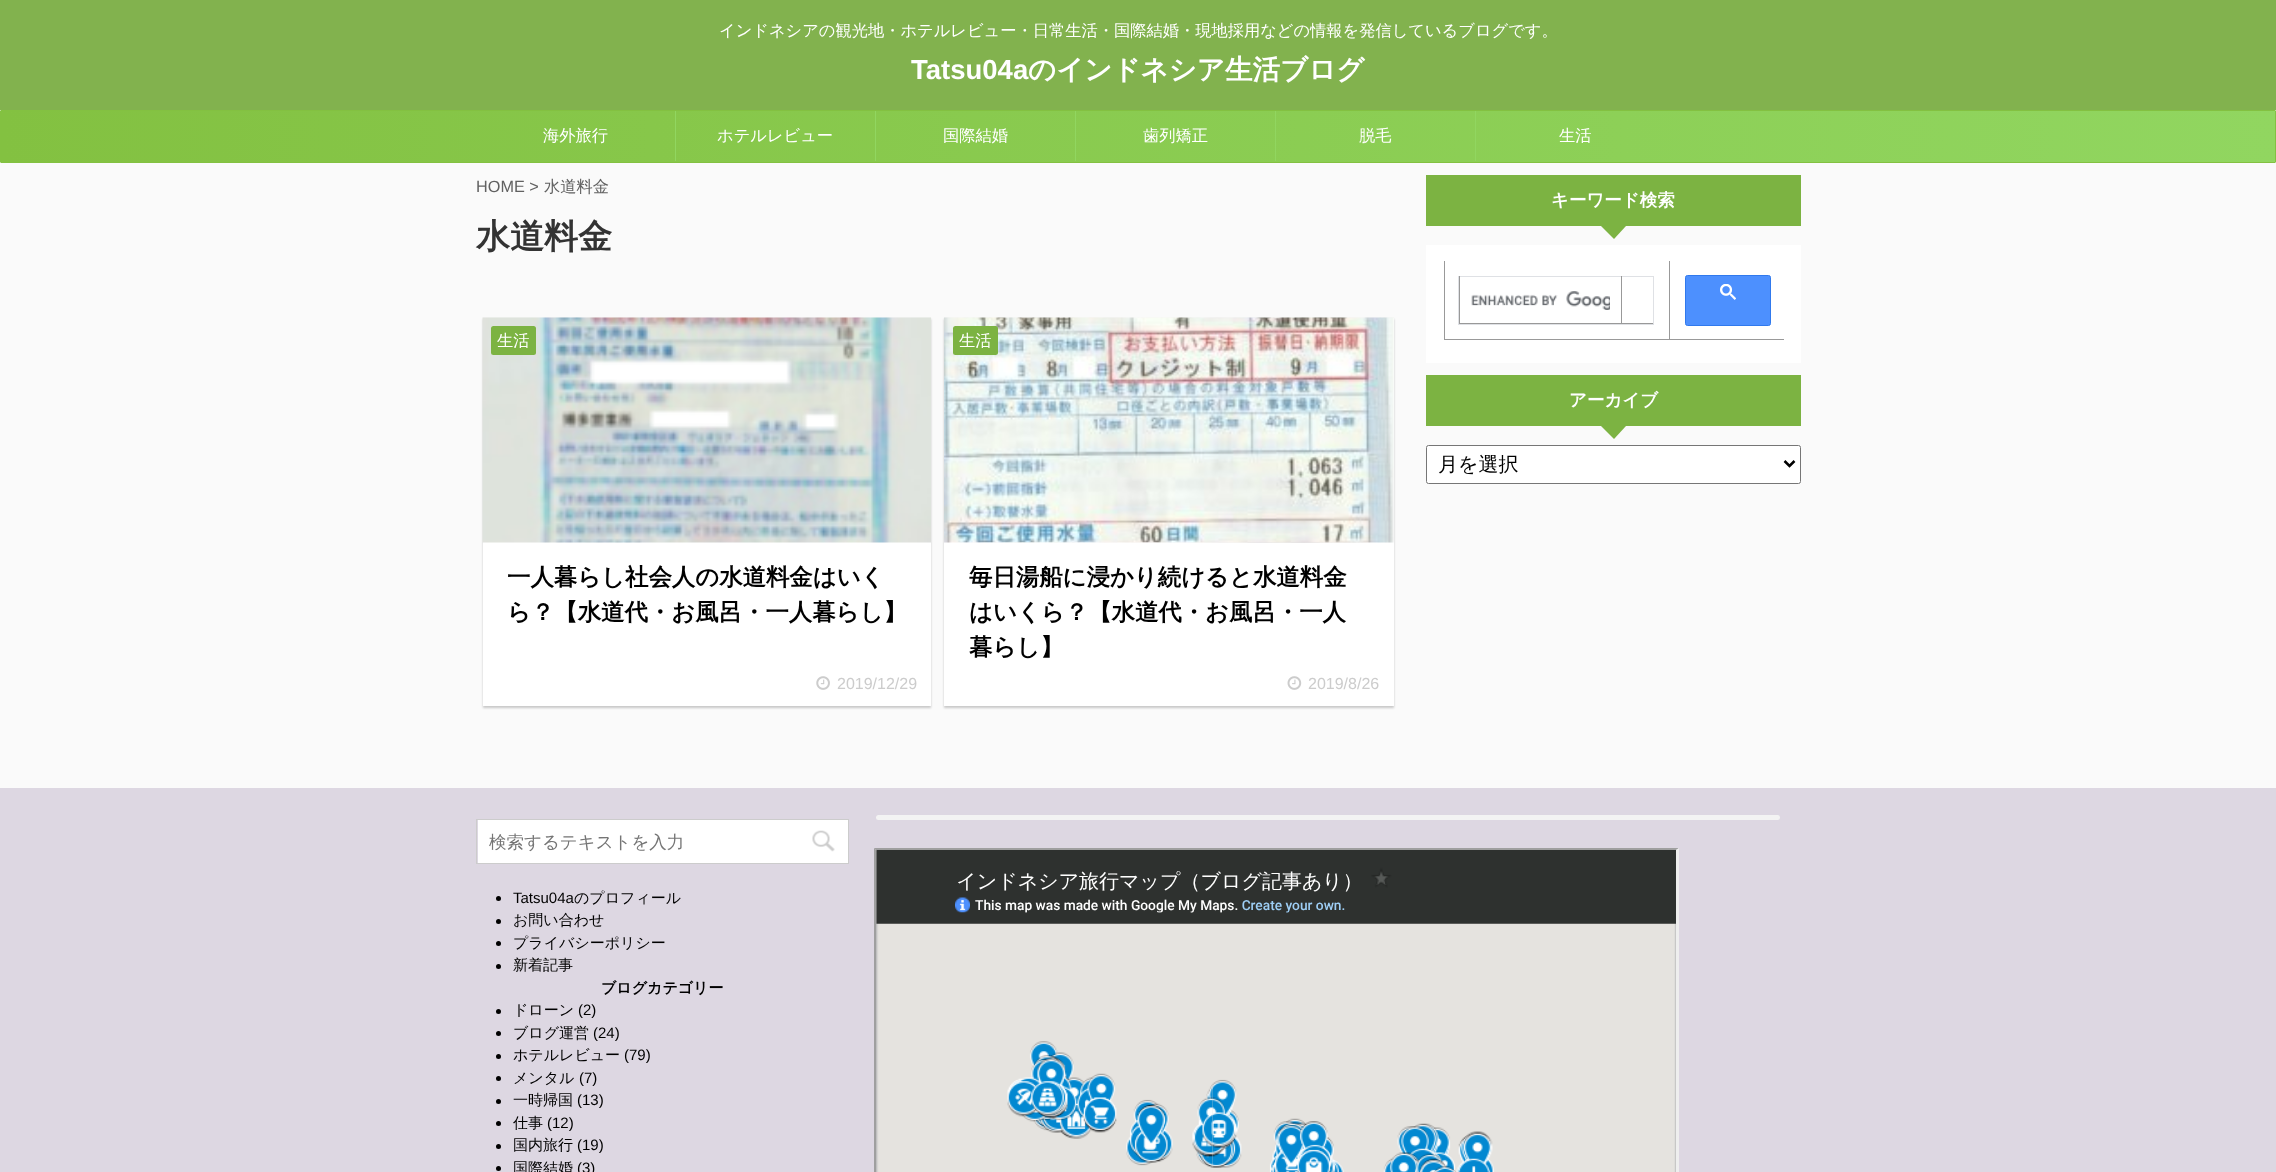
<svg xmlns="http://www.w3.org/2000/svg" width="2276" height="1172">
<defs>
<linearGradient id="g1" gradientUnits="userSpaceOnUse" x1="2275" y1="136" x2="1.2" y2="136"><stop offset="0" stop-color="#91d660"/><stop offset="1" stop-color="#83c141"/></linearGradient>
</defs>
<rect width="100%" height="100%" fill="#fafafa"/>
<rect width="2276" height="110" fill="#82b24e"/>
<text x="719" y="36" style="font-family:WenQuanYi Zen Hei;font-size:16.25px;font-weight:500;fill:#fff">インドネシアの観光地・ホテルレビュー・日常生活・国際結婚・現地採用などの情報を発信しているブログです。</text>
<text x="911" y="79" style="font-family:Liberation Sans;font-size:27.5px;font-weight:bold;fill:#fff">Tatsu04a</text>
<text x="1028" y="79" style="font-family:WenQuanYi Zen Hei;font-size:27.5px;font-weight:bold;fill:#fff">のインドネシア生活ブログ</text>
<rect x="1" y="111" width="2274" height="51" fill="url(#g1)"/>
<rect x="0.5" y="110.5" width="2275" height="52" rx="0.5" fill="none" stroke="#83c141"/>
<rect x="675" y="111" width="1" height="50" fill="#91d660"/>
<text x="543" y="141" style="font-family:WenQuanYi Zen Hei;font-size:16.25px;font-weight:500;fill:#fff">海外旅行</text>
<rect x="875" y="111" width="1" height="50" fill="#91d660"/>
<text x="717" y="141" style="font-family:WenQuanYi Zen Hei;font-size:16.25px;font-weight:500;fill:#fff">ホテルレビュー</text>
<rect x="1075" y="111" width="1" height="50" fill="#91d660"/>
<text x="943" y="141" style="font-family:WenQuanYi Zen Hei;font-size:16.25px;font-weight:500;fill:#fff">国際結婚</text>
<rect x="1275" y="111" width="1" height="50" fill="#91d660"/>
<text x="1143" y="141" style="font-family:WenQuanYi Zen Hei;font-size:16.25px;font-weight:500;fill:#fff">歯列矯正</text>
<rect x="1475" y="111" width="1" height="50" fill="#91d660"/>
<text x="1359" y="141" style="font-family:WenQuanYi Zen Hei;font-size:16.25px;font-weight:500;fill:#fff">脱毛</text>
<text x="1559" y="141" style="font-family:WenQuanYi Zen Hei;font-size:16.25px;font-weight:500;fill:#fff">生活</text>
<text x="476" y="192" style="font-family:Liberation Sans;font-size:16.25px;fill:#616161">HOME &gt;</text>
<text x="544" y="192" style="font-family:WenQuanYi Zen Hei;font-size:16.25px;font-weight:500;fill:#616161">水道料金</text>
<text x="476" y="248" style="font-family:WenQuanYi Zen Hei;font-size:34px;font-weight:bold;fill:#333">水道料金</text>
<rect x="483" y="319" width="448" height="389" fill="#00000033" filter="blur(1px)"/>
<rect x="483" y="357" width="448" height="349" fill="#fff"/>
<image x="482" y="317" width="449" height="226" href="media/1.png"/>
<rect x="491" y="326" width="45" height="29" rx="2.5" fill="#7cb342"/>
<text x="497" y="346" style="font-family:WenQuanYi Zen Hei;font-size:16.25px;font-weight:500;fill:#fff">生活</text>
<text x="507" y="585" style="font-family:WenQuanYi Zen Hei;font-size:23.4px;font-weight:bold;fill:#000">一人暮らし社会人の水道料金はいく</text>
<text x="507" y="620" style="font-family:WenQuanYi Zen Hei;font-size:23.4px;font-weight:bold;fill:#000">ら？【水道代・お風呂・一人暮らし】</text>
<image x="816" y="676" width="14" height="14" href="media/2.png"/>
<text x="837" y="689" style="font-family:Liberation Sans;font-size:16px;fill:#ccc">2019/12/29</text>
<rect x="944" y="319" width="450" height="389" fill="#00000033" filter="blur(1px)"/>
<rect x="944" y="318" width="450" height="388" fill="#fff"/>
<image x="944" y="317" width="450" height="226" href="media/3.png"/>
<rect x="953" y="326" width="45" height="29" rx="2.5" fill="#7cb342"/>
<text x="959" y="346" style="font-family:WenQuanYi Zen Hei;font-size:16.25px;font-weight:500;fill:#fff">生活</text>
<text x="969" y="585" style="font-family:WenQuanYi Zen Hei;font-size:23.4px;font-weight:bold;fill:#000">毎日湯船に浸かり続けると水道料金</text>
<text x="969" y="620" style="font-family:WenQuanYi Zen Hei;font-size:23.4px;font-weight:bold;fill:#000">はいくら？【水道代・お風呂・一人</text>
<text x="969" y="655" style="font-family:WenQuanYi Zen Hei;font-size:23.4px;font-weight:bold;fill:#000">暮らし】</text>
<image x="1287" y="676" width="15" height="14" href="media/4.png"/>
<text x="1308" y="689" style="font-family:Liberation Sans;font-size:16px;fill:#ccc">2019/8/26</text>
<rect x="1426" y="175" width="375" height="51" fill="#7cb342"/>
<text x="1551" y="206" style="font-family:WenQuanYi Zen Hei;font-size:17.5px;font-weight:bold;fill:#fff">キーワード検索</text>
<path d="M1601 226h25l-12 13z" fill="#7cb342"/>
<rect x="1426" y="245" width="375" height="118" fill="#fff"/>
<rect x="1669" y="339" width="115" height="1" fill="#999"/>
<rect x="1669" y="261" width="1" height="79" fill="#999"/>
<rect x="1444" y="339" width="226" height="1" fill="#999"/>
<rect x="1444" y="261" width="1" height="79" fill="#999"/>
<rect x="1458.5" y="276.5" width="195" height="48" fill="none" stroke="#dfe1e5"/>
<rect x="1621" y="323" width="32" height="1" fill="#999"/>
<rect x="1621" y="276" width="1" height="48" fill="#999"/>
<rect x="1459" y="323" width="164" height="1" fill="#999"/>
<rect x="1459" y="276" width="1" height="48" fill="#999"/>
<image x="1471" y="291" width="139" height="19" href="media/5.png"/>
<rect x="1685.5" y="275.5" width="85" height="50" rx="2" fill="#4d90fe" stroke="#3079ed"/>
<image x="1720" y="284" width="16" height="16" href="media/6.png"/>
<rect x="1426" y="375" width="375" height="51" fill="#7cb342"/>
<text x="1569" y="406" style="font-family:WenQuanYi Zen Hei;font-size:17.5px;font-weight:bold;fill:#fff">アーカイブ</text>
<path d="M1601 426h25l-12 13z" fill="#7cb342"/>
<rect x="1426.5" y="445.5" width="374" height="38" rx="2" fill="#fff" stroke="#767676"/>
<path d="M1784.5 461l5 5l5-5" fill="none" stroke="#000" stroke-width="2.5"/>
<text x="1438" y="471" style="font-family:WenQuanYi Zen Hei;font-size:20px;font-weight:500;fill:#000">月を選択</text>
<rect y="788" width="2276" height="384" fill="#ddd7e2"/>
<rect x="476.5" y="819.5" width="372" height="44" fill="none" stroke="#ccc"/>
<rect x="478" y="820" width="370" height="43" fill="#fff"/>
<text x="489" y="848" style="font-family:WenQuanYi Zen Hei;font-size:17.5px;font-weight:500;fill:#757575">検索するテキストを入力</text>
<image x="812" y="830" width="23" height="22" href="media/7.png"/>
<circle cx="498.5" cy="898.5" r="2.5" fill="#000"/>
<text x="513" y="903" style="font-family:Liberation Sans;font-size:15px;fill:#000">Tatsu04a</text>
<text x="574" y="903" style="font-family:WenQuanYi Zen Hei;font-size:15px;font-weight:500;fill:#000">のプロフィール</text>
<circle cx="498.5" cy="921.5" r="2.5" fill="#000"/>
<text x="513" y="925" style="font-family:WenQuanYi Zen Hei;font-size:15px;font-weight:500;fill:#000">お問い合わせ</text>
<circle cx="498.5" cy="943.5" r="2.5" fill="#000"/>
<text x="513" y="948" style="font-family:WenQuanYi Zen Hei;font-size:15px;font-weight:500;fill:#000">プライバシーポリシー</text>
<circle cx="498.5" cy="966.5" r="2.5" fill="#000"/>
<text x="513" y="970" style="font-family:WenQuanYi Zen Hei;font-size:15px;font-weight:500;fill:#000">新着記事</text>
<text x="601" y="993" style="font-family:WenQuanYi Zen Hei;font-size:15px;font-weight:bold;fill:#000">ブログカテゴリー</text>
<circle cx="498.5" cy="1011.5" r="2.5" fill="#000"/>
<text x="513" y="1015" style="font-family:WenQuanYi Zen Hei;font-size:15px;font-weight:500;fill:#000">ドローン</text>
<text x="578" y="1015" style="font-family:Liberation Sans;font-size:15px;fill:#000">(2)</text>
<circle cx="498.5" cy="1033.5" r="2.5" fill="#000"/>
<text x="513" y="1038" style="font-family:WenQuanYi Zen Hei;font-size:15px;font-weight:500;fill:#000">ブログ運営</text>
<text x="593" y="1038" style="font-family:Liberation Sans;font-size:15px;fill:#000">(24)</text>
<circle cx="498.5" cy="1056.5" r="2.5" fill="#000"/>
<text x="513" y="1060" style="font-family:WenQuanYi Zen Hei;font-size:15px;font-weight:500;fill:#000">ホテルレビュー</text>
<text x="624" y="1060" style="font-family:Liberation Sans;font-size:15px;fill:#000">(79)</text>
<circle cx="498.5" cy="1078.5" r="2.5" fill="#000"/>
<text x="513" y="1083" style="font-family:WenQuanYi Zen Hei;font-size:15px;font-weight:500;fill:#000">メンタル</text>
<text x="579" y="1083" style="font-family:Liberation Sans;font-size:15px;fill:#000">(7)</text>
<circle cx="498.5" cy="1101.5" r="2.5" fill="#000"/>
<text x="513" y="1105" style="font-family:WenQuanYi Zen Hei;font-size:15px;font-weight:500;fill:#000">一時帰国</text>
<text x="577" y="1105" style="font-family:Liberation Sans;font-size:15px;fill:#000">(13)</text>
<circle cx="498.5" cy="1123.5" r="2.5" fill="#000"/>
<text x="513" y="1128" style="font-family:WenQuanYi Zen Hei;font-size:15px;font-weight:500;fill:#000">仕事</text>
<text x="547" y="1128" style="font-family:Liberation Sans;font-size:15px;fill:#000">(12)</text>
<circle cx="498.5" cy="1146.5" r="2.5" fill="#000"/>
<text x="513" y="1150" style="font-family:WenQuanYi Zen Hei;font-size:15px;font-weight:500;fill:#000">国内旅行</text>
<text x="577" y="1150" style="font-family:Liberation Sans;font-size:15px;fill:#000">(19)</text>
<circle cx="498.5" cy="1168.5" r="2.5" fill="#000"/>
<text x="513" y="1173" style="font-family:WenQuanYi Zen Hei;font-size:15px;font-weight:500;fill:#000">国際結婚</text>
<text x="577" y="1173" style="font-family:Liberation Sans;font-size:15px;fill:#000">(3)</text>
<rect x="876" y="815" width="904" height="5" rx="2.5" fill="#f3f3f3"/>
<path d="M874 848h805l-3 2h-800z" fill="#9f9f9f"/>
<path d="M874 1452v-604l2 2v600z" fill="#9f9f9f"/>
<image x="876" y="850" width="800" height="322" href="media/8.png"/>
<path d="M1679 848v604l-3-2v-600z" fill="#eee"/>
</svg>
